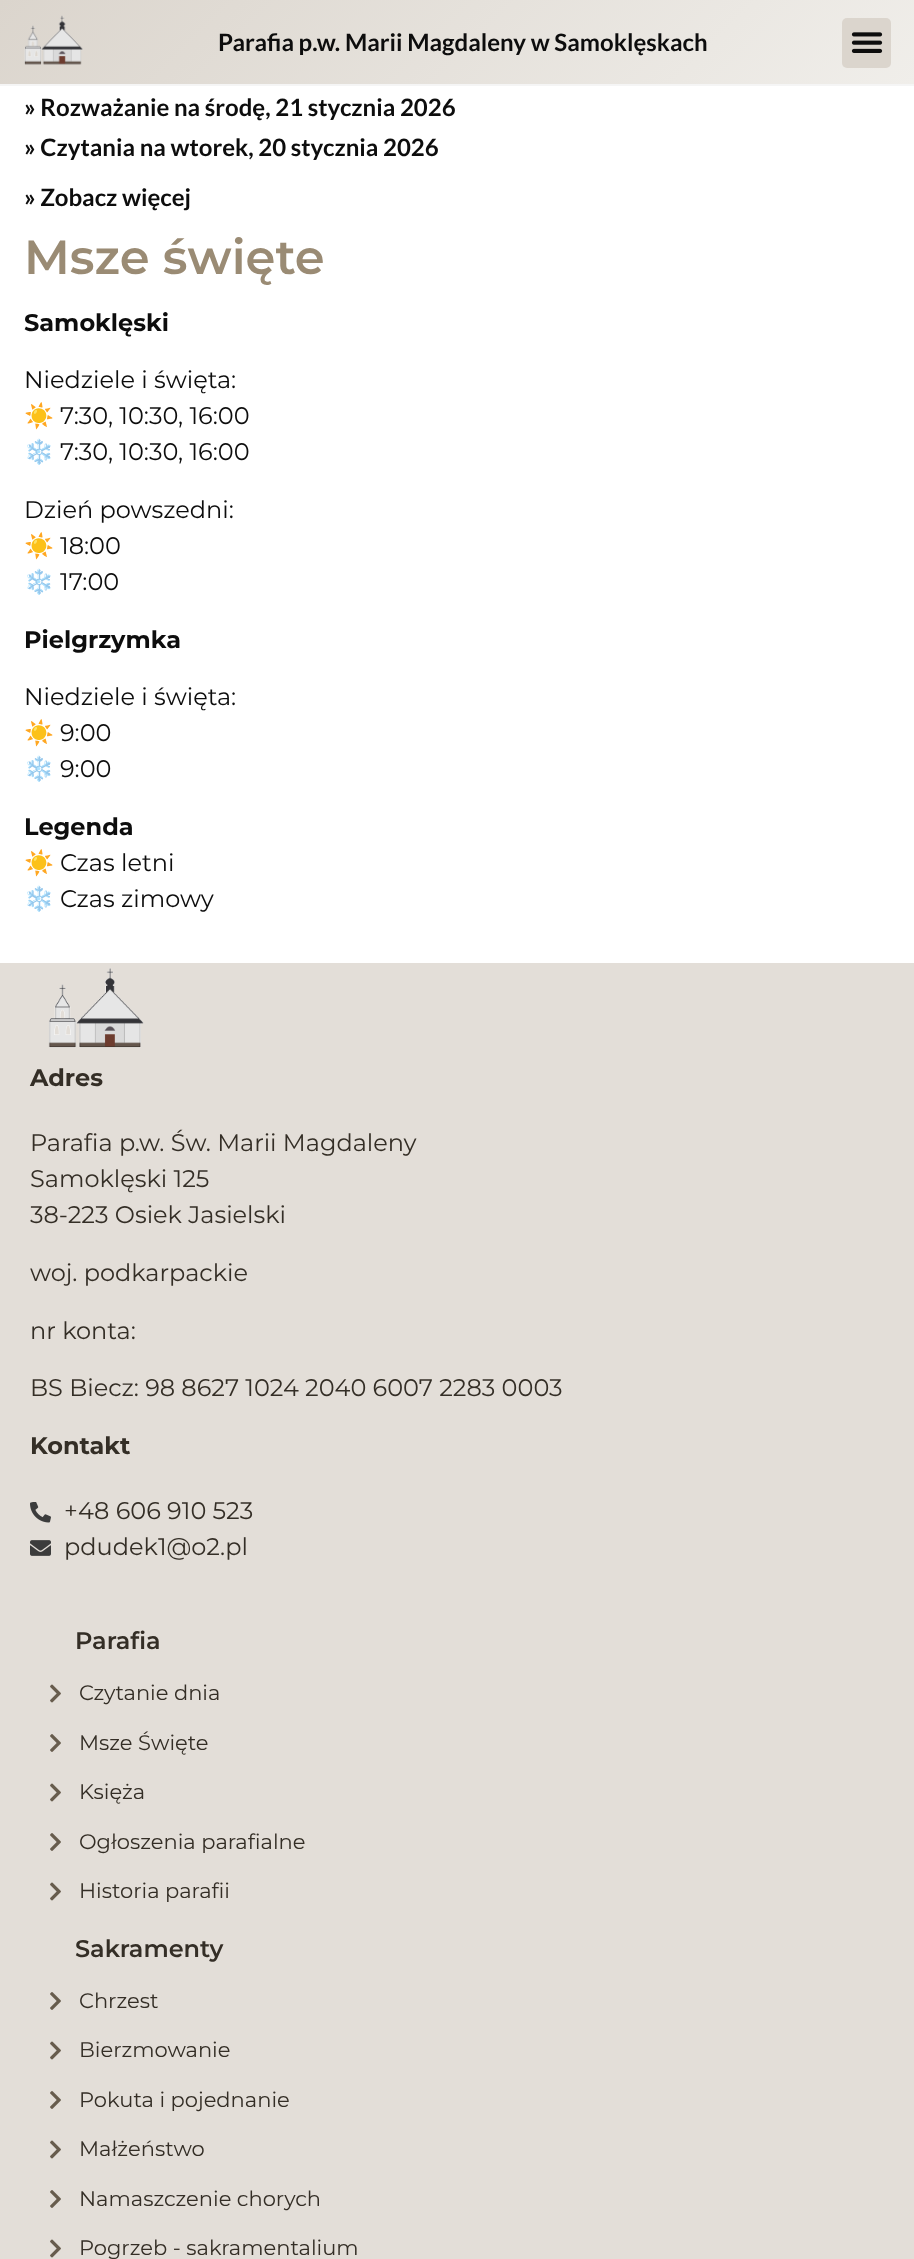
<svg xmlns="http://www.w3.org/2000/svg" width="914" height="2259">
<defs>
<linearGradient id="g1" gradientUnits="userSpaceOnUse" x1="208" y1="-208" x2="707" y2="292"><stop offset="0" stop-color="#dbd5cd"/><stop offset="1" stop-color="#f0eeea"/></linearGradient>
</defs>
<rect width="100%" height="100%" fill="#fff"/>
<rect width="914" height="84" fill="url(#g1)"/>
<rect y="84" width="914" height="2" fill="#f5f5f5"/>
<image x="24" y="15" width="59" height="50" href="media/1.png"/>
<text x="218" y="51" style="font-family:Lato;font-size:24px;font-weight:bold;fill:#0d0d0d">Parafia p.w. Marii Magdaleny w Samoklęskach</text>
<rect x="842" y="18" width="49" height="50" rx="5" fill="#dbd5cd"/>
<image x="851" y="32" width="32" height="21" href="media/2.png"/>
<text x="24" y="116" style="font-family:Lato;font-size:24px;font-weight:bold;fill:#0d0d0d">» Rozważanie na środę, 21 stycznia 2026</text>
<text x="24" y="156" style="font-family:Lato;font-size:24px;font-weight:bold;fill:#0d0d0d">» Czytania na wtorek, 20 stycznia 2026</text>
<text x="24" y="206" style="font-family:Lato;font-size:24px;font-weight:bold;fill:#0d0d0d">» Zobacz więcej</text>
<text x="24" y="274" style="font-family:Montserrat;font-size:48px;font-weight:600;fill:#9a8b74">Msze święte</text>
<text x="24" y="331" style="font-family:Montserrat;font-size:24px;font-weight:bold;fill:#0d0d0d">Samoklęski</text>
<text x="24" y="388" style="font-family:Montserrat;font-size:24px;fill:#0d0d0d">Niedziele i święta:</text>
<text x="24" y="424" style="font-family:Noto Color Emoji;font-size:24px;fill:#0d0d0d">☀️</text>
<text x="60" y="424" style="font-family:Montserrat;font-size:24px;fill:#0d0d0d">7:30, 10:30, 16:00</text>
<text x="24" y="460" style="font-family:Noto Color Emoji;font-size:24px;fill:#0d0d0d">❄️</text>
<text x="60" y="460" style="font-family:Montserrat;font-size:24px;fill:#0d0d0d">7:30, 10:30, 16:00</text>
<text x="24" y="518" style="font-family:Montserrat;font-size:24px;fill:#0d0d0d">Dzień powszedni:</text>
<text x="24" y="554" style="font-family:Noto Color Emoji;font-size:24px;fill:#0d0d0d">☀️</text>
<text x="60" y="554" style="font-family:Montserrat;font-size:24px;fill:#0d0d0d">18:00</text>
<text x="24" y="590" style="font-family:Noto Color Emoji;font-size:24px;fill:#0d0d0d">❄️</text>
<text x="60" y="590" style="font-family:Montserrat;font-size:24px;fill:#0d0d0d">17:00</text>
<text x="24" y="648" style="font-family:Montserrat;font-size:24px;font-weight:bold;fill:#0d0d0d">Pielgrzymka</text>
<text x="24" y="705" style="font-family:Montserrat;font-size:24px;fill:#0d0d0d">Niedziele i święta:</text>
<text x="24" y="741" style="font-family:Noto Color Emoji;font-size:24px;fill:#0d0d0d">☀️</text>
<text x="60" y="741" style="font-family:Montserrat;font-size:24px;fill:#0d0d0d">9:00</text>
<text x="24" y="777" style="font-family:Noto Color Emoji;font-size:24px;fill:#0d0d0d">❄️</text>
<text x="60" y="777" style="font-family:Montserrat;font-size:24px;fill:#0d0d0d">9:00</text>
<text x="24" y="835" style="font-family:Montserrat;font-size:24px;font-weight:bold;fill:#0d0d0d">Legenda</text>
<text x="24" y="871" style="font-family:Noto Color Emoji;font-size:24px;fill:#0d0d0d">☀️</text>
<text x="60" y="871" style="font-family:Montserrat;font-size:24px;fill:#0d0d0d">Czas letni</text>
<text x="24" y="907" style="font-family:Noto Color Emoji;font-size:24px;fill:#0d0d0d">❄️</text>
<text x="60" y="907" style="font-family:Montserrat;font-size:24px;fill:#0d0d0d">Czas zimowy</text>
<rect y="963" width="914" height="1296" fill="#e3ded8"/>
<image x="48" y="968" width="96" height="80" href="media/3.png"/>
<text x="30" y="1086" style="font-family:Montserrat;font-size:24px;font-weight:bold;fill:#342e26">Adres</text>
<text x="30" y="1151" style="font-family:Montserrat;font-size:24px;fill:#342e26">Parafia p.w. Św. Marii Magdaleny</text>
<text x="30" y="1187" style="font-family:Montserrat;font-size:24px;fill:#342e26">Samoklęski 125</text>
<text x="30" y="1223" style="font-family:Montserrat;font-size:24px;fill:#342e26">38-223 Osiek Jasielski</text>
<text x="30" y="1281" style="font-family:Montserrat;font-size:24px;fill:#342e26">woj. podkarpackie</text>
<text x="30" y="1339" style="font-family:Montserrat;font-size:24px;fill:#342e26">nr konta:</text>
<text x="30" y="1396" style="font-family:Montserrat;font-size:24px;fill:#342e26">BS Biecz: 98 8627 1024 2040 6007 2283 0003</text>
<text x="30" y="1454" style="font-family:Montserrat;font-size:24px;font-weight:bold;fill:#342e26">Kontakt</text>
<image x="30" y="1502" width="21" height="21" href="media/4.png"/>
<text x="64" y="1519" style="font-family:Montserrat;font-size:24px;fill:#342e26">+48 606 910 523</text>
<image x="30" y="1540" width="21" height="16" href="media/5.png"/>
<text x="64" y="1555" style="font-family:Montserrat;font-size:24px;fill:#342e26">pdudek1@o2.pl</text>
<text x="75" y="1649" style="font-family:Montserrat;font-size:24px;font-weight:600;fill:#342e26">Parafia</text>
<image x="50" y="1684" width="11" height="19" href="media/6.png"/>
<text x="79" y="1700" style="font-family:Montserrat;font-size:21px;fill:#342e26">Czytanie dnia</text>
<image x="50" y="1734" width="11" height="18" href="media/7.png"/>
<text x="79" y="1750" style="font-family:Montserrat;font-size:21px;fill:#342e26">Msze Święte</text>
<image x="50" y="1783" width="11" height="19" href="media/6.png"/>
<text x="79" y="1799" style="font-family:Montserrat;font-size:21px;fill:#342e26">Księża</text>
<image x="50" y="1833" width="11" height="18" href="media/7.png"/>
<text x="79" y="1849" style="font-family:Montserrat;font-size:21px;fill:#342e26">Ogłoszenia parafialne</text>
<image x="50" y="1882" width="11" height="19" href="media/6.png"/>
<text x="79" y="1898" style="font-family:Montserrat;font-size:21px;fill:#342e26">Historia parafii</text>
<text x="75" y="1957" style="font-family:Montserrat;font-size:24px;font-weight:600;fill:#342e26">Sakramenty</text>
<image x="50" y="1992" width="11" height="18" href="media/7.png"/>
<text x="79" y="2008" style="font-family:Montserrat;font-size:21px;fill:#342e26">Chrzest</text>
<image x="50" y="2041" width="11" height="19" href="media/6.png"/>
<text x="79" y="2057" style="font-family:Montserrat;font-size:21px;fill:#342e26">Bierzmowanie</text>
<image x="50" y="2091" width="11" height="18" href="media/7.png"/>
<text x="79" y="2107" style="font-family:Montserrat;font-size:21px;fill:#342e26">Pokuta i pojednanie</text>
<image x="50" y="2140" width="11" height="19" href="media/6.png"/>
<text x="79" y="2156" style="font-family:Montserrat;font-size:21px;fill:#342e26">Małżeństwo</text>
<image x="50" y="2190" width="11" height="18" href="media/7.png"/>
<text x="79" y="2206" style="font-family:Montserrat;font-size:21px;fill:#342e26">Namaszczenie chorych</text>
<image x="50" y="2239" width="11" height="19" href="media/6.png"/>
<text x="79" y="2255" style="font-family:Montserrat;font-size:21px;fill:#342e26">Pogrzeb - sakramentalium</text>
</svg>
